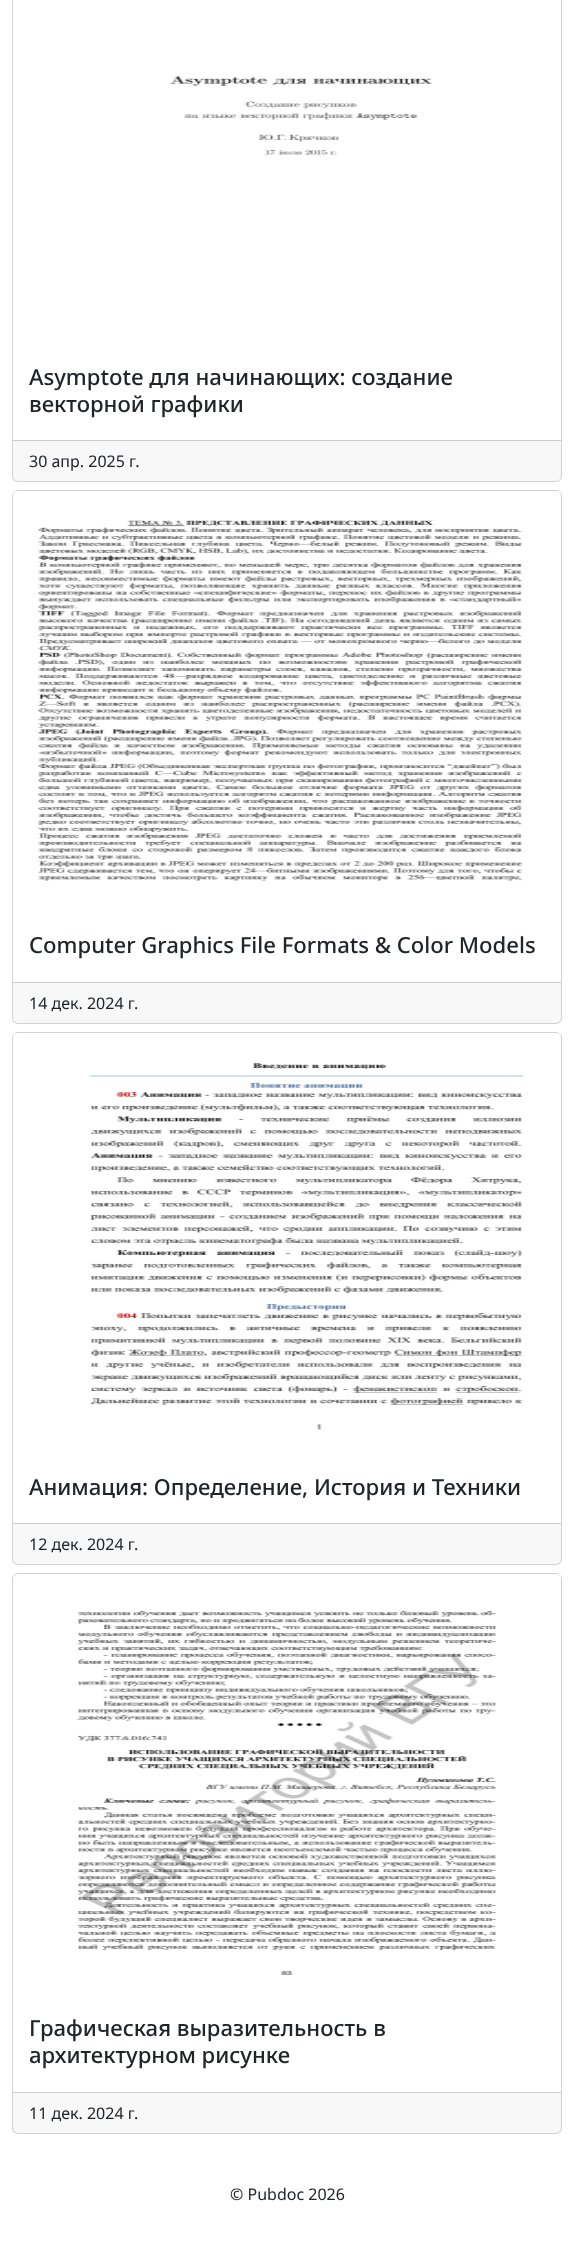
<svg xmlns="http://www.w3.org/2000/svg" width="574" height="2254">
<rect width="100%" height="100%" fill="#fff"/>
<rect x="12.5" y="-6.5" width="549" height="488" rx="5.5" fill="none" stroke="#d2d2d2"/>
<image x="169" y="76" width="263" height="79" href="media/1.png"/>
<text x="29" y="385" style="font-family:Noto Sans;font-size:22.1px;font-weight:500;fill:#212529">Asymptote для начинающих: создание</text>
<text x="29" y="412" style="font-family:Noto Sans;font-size:22.1px;font-weight:500;fill:#212529">векторной графики</text>
<rect x="13" y="441" width="548" height="40" fill="#21252908"/>
<rect x="13" y="440" width="548" height="1" fill="#cdcdcd"/>
<text x="29" y="467" style="font-family:Noto Sans;font-size:16px;fill:#212529">30 апр. 2025 г.</text>
<rect x="12.5" y="490.5" width="549" height="533" rx="5.5" fill="none" stroke="#d2d2d2"/>
<image x="13" y="491" width="548" height="390" href="media/2.png"/>
<text x="29" y="953" style="font-family:Noto Sans;font-size:22.1px;font-weight:500;fill:#212529">Computer Graphics File Formats &amp; Color Models</text>
<rect x="13" y="983" width="548" height="40" fill="#21252908"/>
<rect x="13" y="982" width="548" height="1" fill="#cdcdcd"/>
<text x="29" y="1009" style="font-family:Noto Sans;font-size:16px;fill:#212529">14 дек. 2024 г.</text>
<rect x="12.5" y="1032.5" width="549" height="532" rx="5.5" fill="none" stroke="#d2d2d2"/>
<image x="13" y="1033" width="548" height="397" href="media/3.png"/>
<text x="29" y="1495" style="font-family:Noto Sans;font-size:22.1px;font-weight:500;fill:#212529">Анимация: Определение, История и Техники</text>
<rect x="13" y="1524" width="548" height="40" fill="#21252908"/>
<rect x="13" y="1523" width="548" height="1" fill="#cdcdcd"/>
<text x="29" y="1550" style="font-family:Noto Sans;font-size:16px;fill:#212529">12 дек. 2024 г.</text>
<rect x="12.5" y="1573.5" width="549" height="560" rx="5.5" fill="none" stroke="#d2d2d2"/>
<image x="13" y="1574" width="548" height="401" href="media/4.png"/>
<text x="29" y="2036" style="font-family:Noto Sans;font-size:22.1px;font-weight:500;fill:#212529">Графическая выразительность в</text>
<text x="29" y="2063" style="font-family:Noto Sans;font-size:22.1px;font-weight:500;fill:#212529">архитектурном рисунке</text>
<rect x="13" y="2093" width="548" height="40" fill="#21252908"/>
<rect x="13" y="2092" width="548" height="1" fill="#cdcdcd"/>
<text x="29" y="2119" style="font-family:Noto Sans;font-size:16px;fill:#212529">11 дек. 2024 г.</text>
<text x="230" y="2200" style="font-family:Noto Sans;font-size:16px;fill:#212529">© Pubdoc 2026</text>
</svg>
